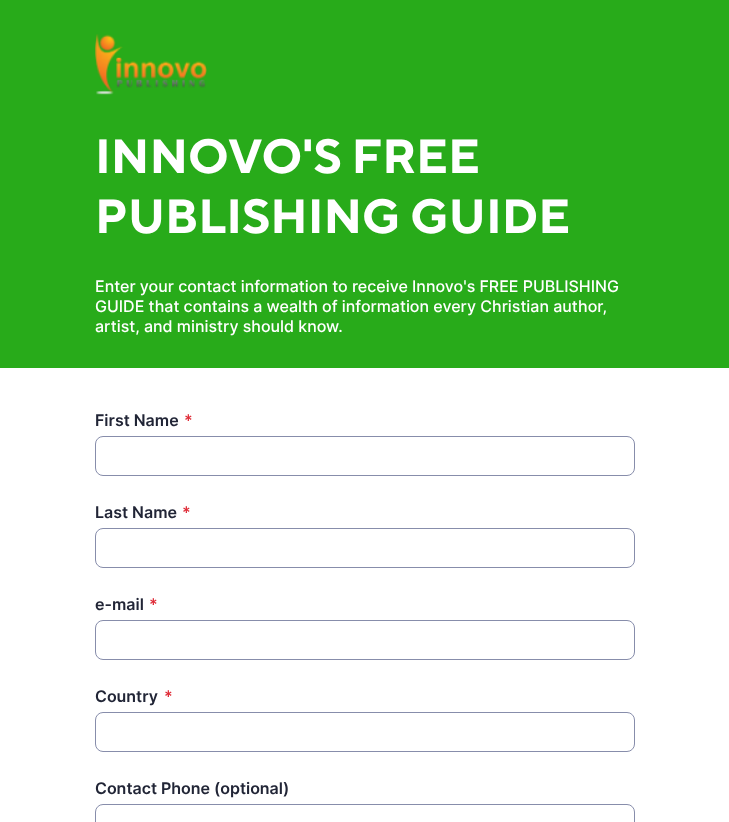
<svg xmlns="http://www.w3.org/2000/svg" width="729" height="822">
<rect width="100%" height="100%" fill="#fff"/>
<rect width="729" height="368" fill="#28ab1a"/>
<image x="95" y="34" width="112" height="61" href="media/1.png"/>
<text x="95" y="173" style="font-family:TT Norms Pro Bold;font-size:48px;font-weight:bold;fill:#fff">INNOVO'S FREE</text>
<text x="95" y="233" style="font-family:TT Norms Pro Bold;font-size:48px;font-weight:bold;fill:#fff">PUBLISHING GUIDE</text>
<text x="95" y="292" style="font-family:Inter;font-size:16px;font-weight:500;fill:#fff">Enter your contact information to receive Innovo's FREE PUBLISHING</text>
<text x="95" y="312" style="font-family:Inter;font-size:16px;font-weight:500;fill:#fff">GUIDE that contains a wealth of information every Christian author,</text>
<text x="95" y="332" style="font-family:Inter;font-size:16px;font-weight:500;fill:#fff">artist, and ministry should know.</text>
<text x="95" y="426" style="font-family:Inter;font-size:16px;font-weight:600;fill:#212536">First Name</text>
<text x="184" y="426" style="font-family:Inter;font-size:16px;font-weight:600;fill:#df2a36">*</text>
<rect x="95.5" y="436.5" width="539" height="39" rx="7.5" fill="none" stroke="#878dab"/>
<text x="95" y="518" style="font-family:Inter;font-size:16px;font-weight:600;fill:#212536">Last Name</text>
<text x="182" y="518" style="font-family:Inter;font-size:16px;font-weight:600;fill:#df2a36">*</text>
<rect x="95.5" y="528.5" width="539" height="39" rx="7.5" fill="none" stroke="#878dab"/>
<text x="95" y="610" style="font-family:Inter;font-size:16px;font-weight:600;fill:#212536">e-mail</text>
<text x="149" y="610" style="font-family:Inter;font-size:16px;font-weight:600;fill:#df2a36">*</text>
<rect x="95.5" y="620.5" width="539" height="39" rx="7.5" fill="none" stroke="#878dab"/>
<text x="95" y="702" style="font-family:Inter;font-size:16px;font-weight:600;fill:#212536">Country</text>
<text x="164" y="702" style="font-family:Inter;font-size:16px;font-weight:600;fill:#df2a36">*</text>
<rect x="95.5" y="712.5" width="539" height="39" rx="7.5" fill="none" stroke="#878dab"/>
<text x="95" y="794" style="font-family:Inter;font-size:16px;font-weight:600;fill:#212536">Contact Phone (optional)</text>
<rect x="95.5" y="804.5" width="539" height="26" rx="7.5" fill="none" stroke="#878dab"/>
</svg>
